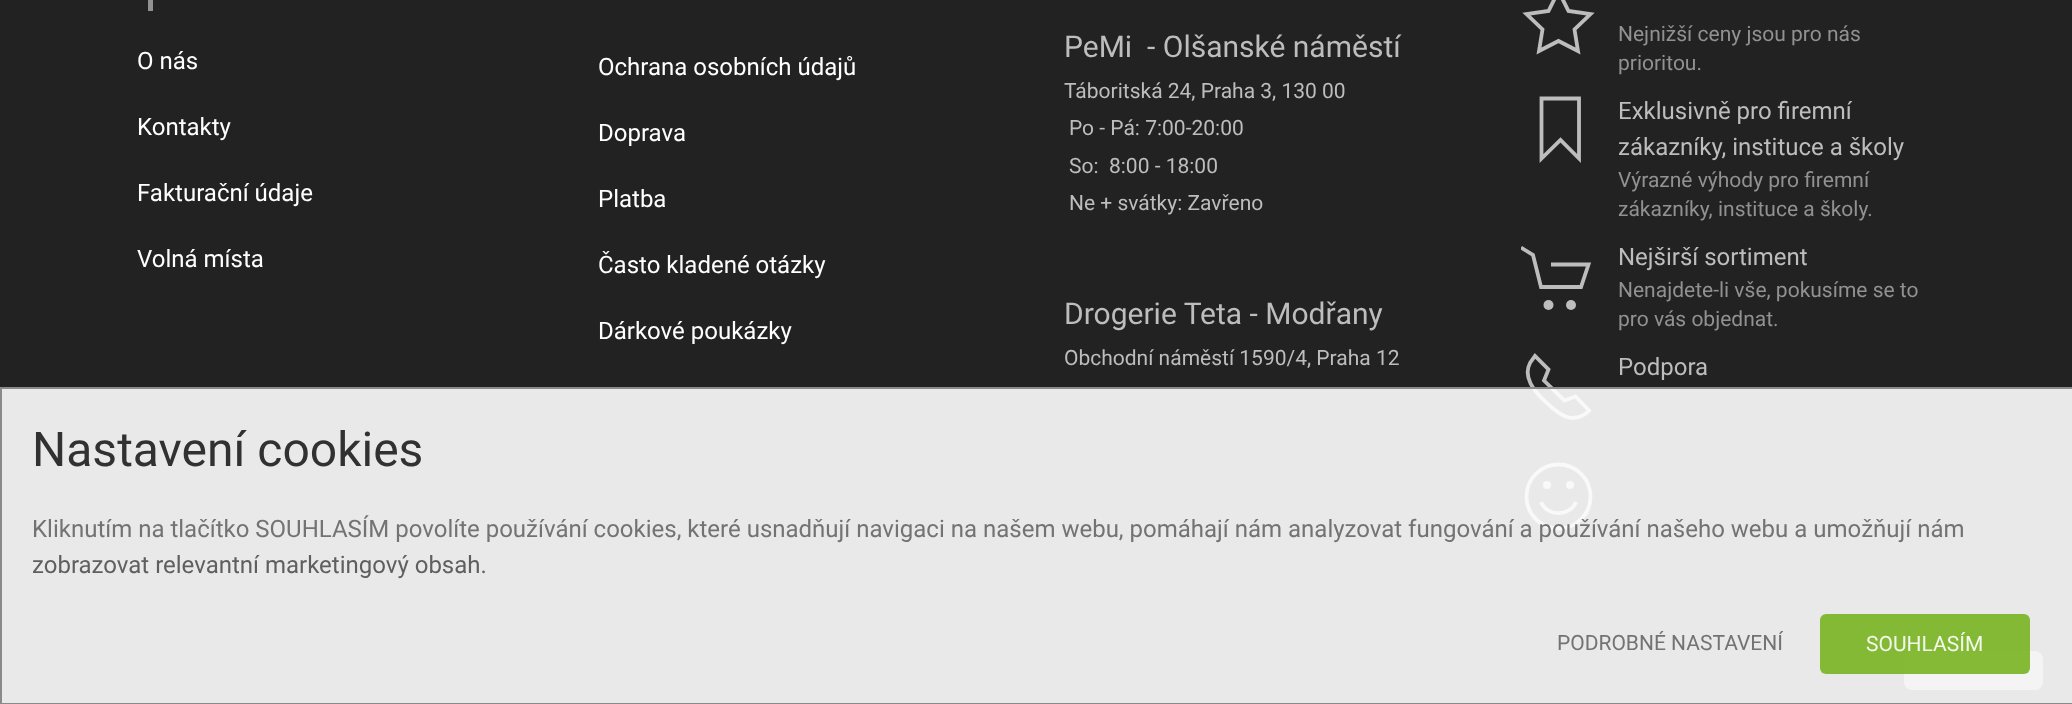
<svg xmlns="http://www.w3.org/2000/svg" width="2072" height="704">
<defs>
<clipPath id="clip1"><rect x="1521" y="240" width="75" height="75"/></clipPath>
</defs>
<rect width="100%" height="100%" fill="#222"/>
<rect x="148" width="5" height="11" fill="#919191"/>
<text x="137" y="69" style="font-family:Roboto;font-size:24px;fill:#fff">O nás</text>
<text x="137" y="135" style="font-family:Roboto;font-size:24px;fill:#fff">Kontakty</text>
<text x="137" y="201" style="font-family:Roboto;font-size:24px;fill:#fff">Fakturační údaje</text>
<text x="137" y="267" style="font-family:Roboto;font-size:24px;fill:#fff">Volná místa</text>
<text x="598" y="75" style="font-family:Roboto;font-size:24px;fill:#fff">Ochrana osobních údajů</text>
<text x="598" y="141" style="font-family:Roboto;font-size:24px;fill:#fff">Doprava</text>
<text x="598" y="207" style="font-family:Roboto;font-size:24px;fill:#fff">Platba</text>
<text x="598" y="273" style="font-family:Roboto;font-size:24px;fill:#fff">Často kladené otázky</text>
<text x="598" y="339" style="font-family:Roboto;font-size:24px;fill:#fff">Dárkové poukázky</text>
<text x="1064" y="57" style="font-family:Roboto;font-size:30px;fill:#bdbdbd" xml:space="preserve">PeMi  - Olšanské náměstí</text>
<text x="1064" y="98" style="font-family:Roboto;font-size:21px;fill:#bdbdbd">Táboritská 24, Praha 3, 130 00</text>
<text x="1069" y="135" style="font-family:Roboto;font-size:21px;fill:#bdbdbd">Po - Pá: 7:00-20:00</text>
<text x="1069" y="173" style="font-family:Roboto;font-size:21px;fill:#bdbdbd" xml:space="preserve">So:  8:00 - 18:00</text>
<text x="1069" y="210" style="font-family:Roboto;font-size:21px;fill:#bdbdbd">Ne + svátky: Zavřeno</text>
<text x="1064" y="324" style="font-family:Roboto;font-size:30px;fill:#bdbdbd">Drogerie Teta - Modřany</text>
<text x="1064" y="365" style="font-family:Roboto;font-size:21px;fill:#bdbdbd">Obchodní náměstí 1590/4, Praha 12</text>
<path d="M1558.5-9l10 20l22 3l-16 15.5l3.5 21.5l-19.5-10l-19.5 10l3.5-21.5l-16-15.5l22-3z" fill="none" stroke="#bdbdbd" stroke-width="3.8"/>
<text x="1618" y="41" style="font-family:Roboto;font-size:21px;fill:#919191">Nejnižší ceny jsou pro nás</text>
<text x="1618" y="70" style="font-family:Roboto;font-size:21px;fill:#919191">prioritou.</text>
<path d="M1541.5 98.5h37.5v60l-18.5-18.5l-19 18.5z" fill="none" stroke="#bdbdbd" stroke-width="3.8"/>
<text x="1618" y="119" style="font-family:Roboto;font-size:24px;fill:#bdbdbd">Exklusivně pro firemní</text>
<text x="1618" y="155" style="font-family:Roboto;font-size:24px;fill:#bdbdbd">zákazníky, instituce a školy</text>
<text x="1618" y="187" style="font-family:Roboto;font-size:21px;fill:#919191">Výrazné výhody pro firemní</text>
<text x="1618" y="216" style="font-family:Roboto;font-size:21px;fill:#919191">zákazníky, instituce a školy.</text>
<g clip-path="url(#clip1)">
<path d="M1521 247.5l12 7.5l8 32h40l7.5-22.5h-37.5" fill="none" stroke="#bdbdbd" stroke-width="3.8"/>
</g>
<circle cx="1548.5" cy="305" r="5" fill="#bdbdbd"/>
<circle cx="1571" cy="305" r="5" fill="#bdbdbd"/>
<text x="1618" y="265" style="font-family:Roboto;font-size:24px;fill:#bdbdbd">Nejširší sortiment</text>
<text x="1618" y="297" style="font-family:Roboto;font-size:21px;fill:#919191">Nenajdete-li vše, pokusíme se to</text>
<text x="1618" y="326" style="font-family:Roboto;font-size:21px;fill:#919191">pro vás objednat.</text>
<path d="M1544 400.5c7.5 7 18.5 17.5 29 17.5c10 0 16-7.5 16-7.5l-13.5-14l-11 4l-20.5-20l4.5-11l-13.5-13.5l-5 7c-7.5 14.5 4.5 28 14 37.5" fill="none" stroke="#bdbdbd" stroke-width="3.8"/>
<text x="1618" y="375" style="font-family:Roboto;font-size:24px;fill:#bdbdbd">Podpora</text>
<circle cx="1547" cy="485" r="4" fill="#bdbdbd"/>
<circle cx="1570" cy="485" r="4" fill="#bdbdbd"/>
<circle cx="1558.5" cy="496.5" r="32" fill="none" stroke="#bdbdbd" stroke-width="3.8"/>
<path d="M1576 502c-6 15-29 15-35 0" fill="none" stroke="#bdbdbd" stroke-width="3.8"/>
<rect x="1904" y="651" width="139" height="39" rx="8" fill="#8f8f8f"/>
<rect y="387" width="2072" height="317" fill="#ffffffe6"/>
<rect x="1" y="388" width="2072" height="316" fill="none" stroke="#808080e6" stroke-width="2"/>
<text x="32" y="466" style="font-family:Roboto;font-size:48px;fill:#313131">Nastavení cookies</text>
<text x="32" y="537" style="font-family:Roboto;font-size:24px;fill:#737373">Kliknutím na tlačítko SOUHLASÍM povolíte používání cookies, které usnadňují navigaci na našem webu, pomáhají nám analyzovat fungování a používání našeho webu a umožňují nám</text>
<text x="32" y="573" style="font-family:Roboto;font-size:24px;fill:#5f5f5f">zobrazovat relevantní marketingový obsah.</text>
<text x="1557" y="650" style="font-family:Roboto;font-size:21px;fill:#737373">PODROBNÉ NASTAVENÍ</text>
<rect x="1820" y="614" width="210" height="60" rx="6" fill="#78b420e6"/>
<text x="1866" y="651" style="font-family:Roboto;font-size:21px;fill:#f3f8eb">SOUHLASÍM</text>
</svg>
